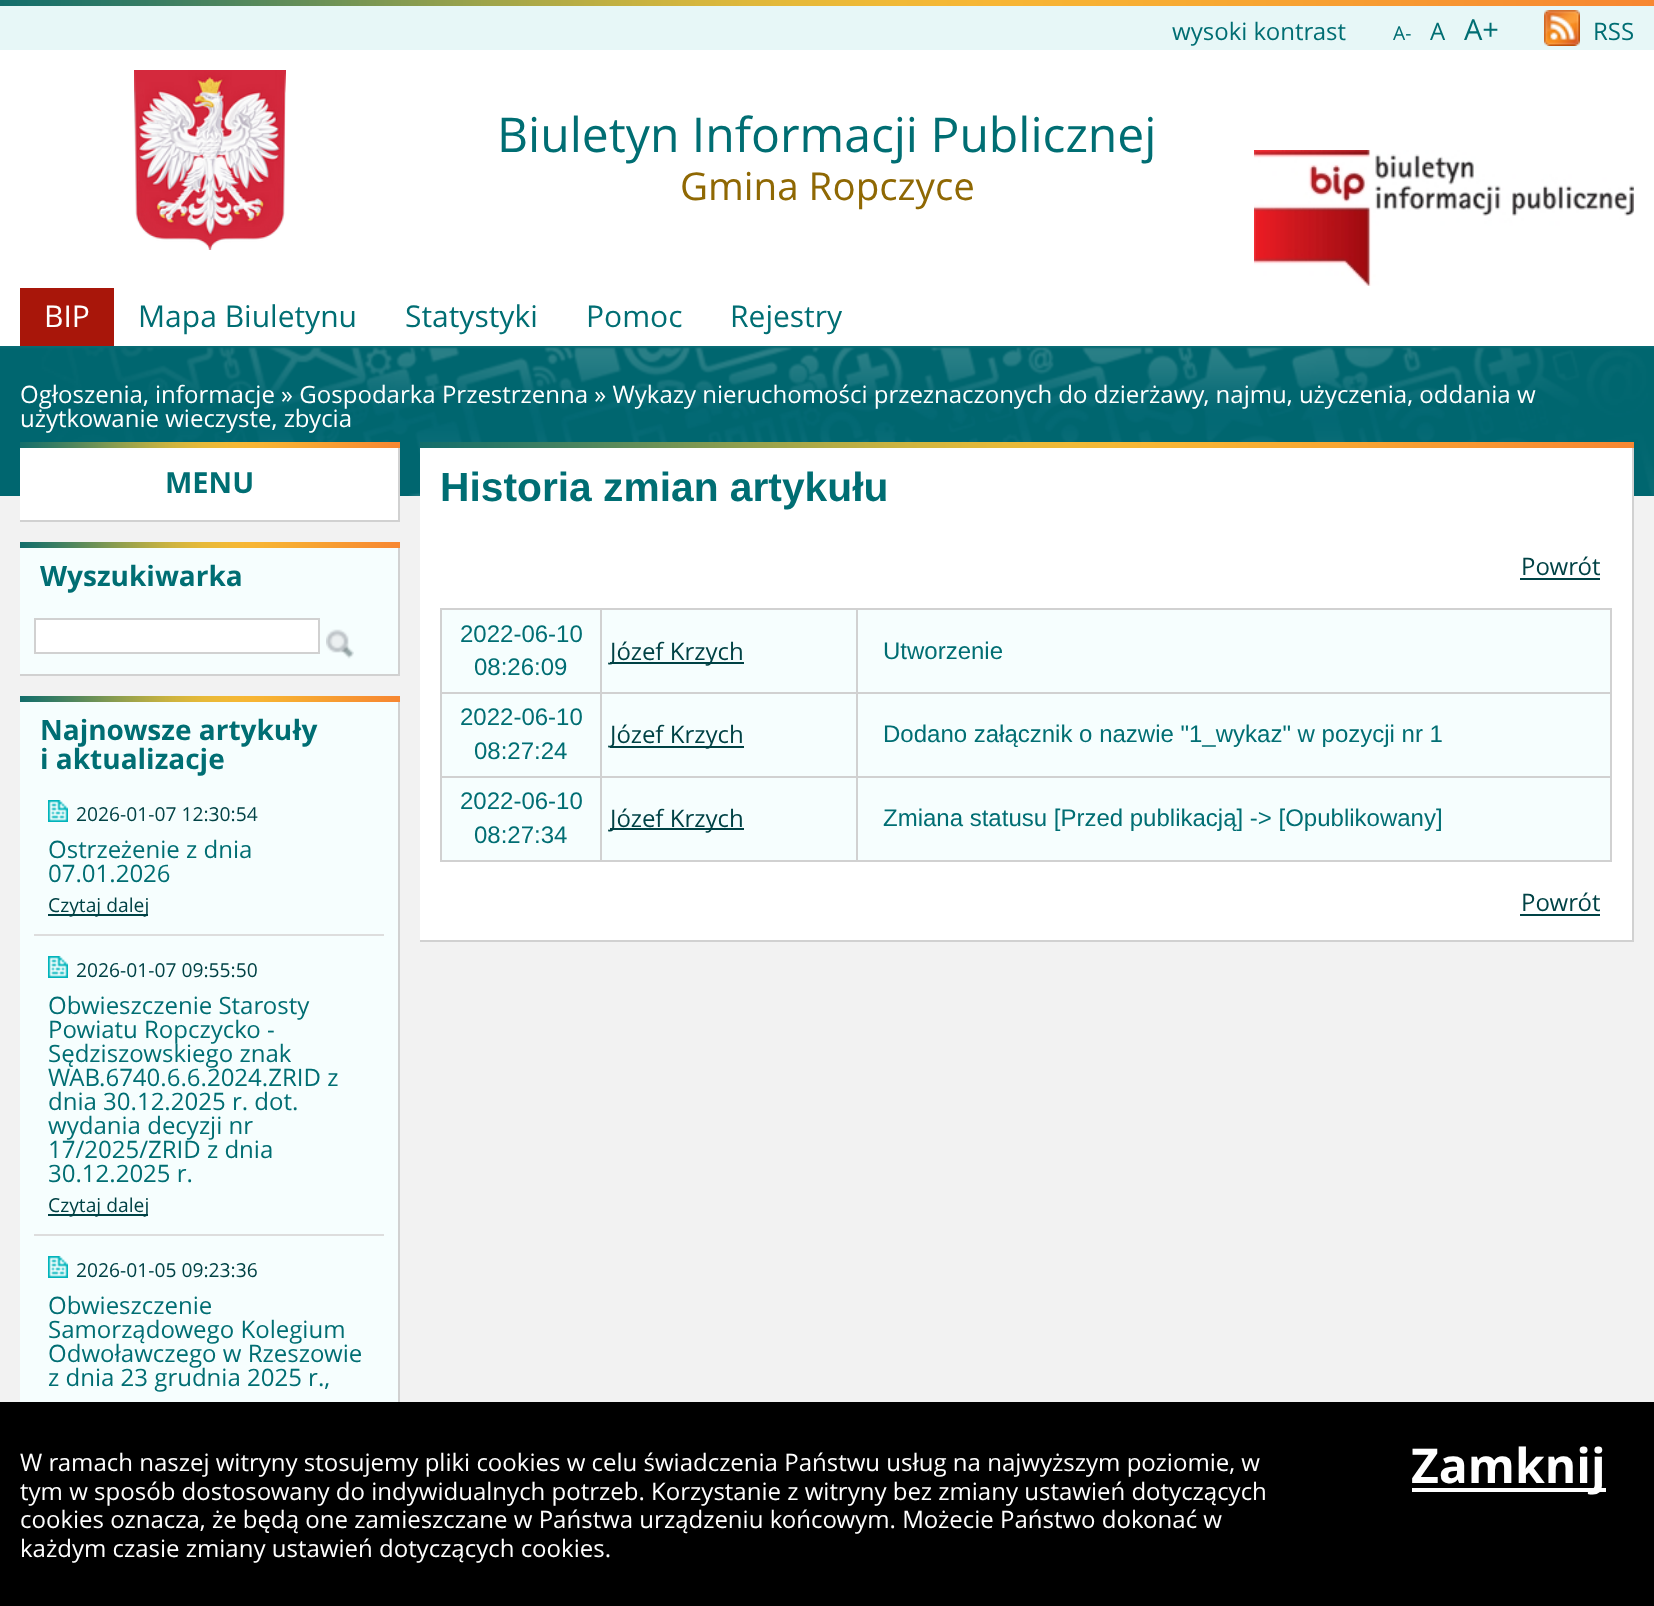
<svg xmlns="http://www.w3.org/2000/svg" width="1654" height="1606">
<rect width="100%" height="100%" fill="#f2f2f2"/>
<rect y="50" width="1654" height="296" fill="#fff"/>
<rect y="6" width="1654" height="44" fill="#e7f7f7"/>
<image x="0" y="0" width="1654" height="6" href="media/1.png"/>
<text x="1172" y="40" style="font-family:Open Sans;font-size:24px;fill:#006e73">wysoki kontrast</text>
<text x="1393" y="40" style="font-family:Open Sans;font-size:19.25px;fill:#006e73">A-</text>
<text x="1430" y="40" style="font-family:Open Sans;font-size:24px;fill:#006e73">A</text>
<text x="1464" y="40" style="font-family:Open Sans;font-size:29px;fill:#006e73">A+</text>
<image x="1544" y="10" width="36" height="36" href="media/2.png"/>
<text x="1593" y="40" style="font-family:Open Sans;font-size:24px;fill:#006e73">RSS</text>
<image x="134" y="70" width="152" height="180" href="media/3.png"/>
<text x="497" y="152" style="font-family:Open Sans;font-size:48px;fill:#006e73">Biuletyn Informacji Publicznej</text>
<text x="680" y="200" style="font-family:Open Sans;font-size:38.5px;fill:#8f6803">Gmina Ropczyce</text>
<image x="1254" y="150" width="380" height="136" href="media/4.png"/>
<rect x="20" y="288" width="94" height="58" fill="#a8160a"/>
<text x="44" y="327" style="font-family:Open Sans;font-size:30px;fill:#fff">BIP</text>
<text x="138" y="327" style="font-family:Open Sans;font-size:30px;fill:#006e73">Mapa Biuletynu</text>
<text x="405" y="327" style="font-family:Open Sans;font-size:30px;fill:#006e73">Statystyki</text>
<text x="586" y="327" style="font-family:Open Sans;font-size:30px;fill:#006e73">Pomoc</text>
<text x="730" y="327" style="font-family:Open Sans;font-size:30px;fill:#006e73">Rejestry</text>
<image x="0" y="346" width="1654" height="150" href="media/5.png"/>
<text x="20" y="403" style="font-family:Open Sans;font-size:24px;fill:#fff">Ogłoszenia, informacje » Gospodarka Przestrzenna » Wykazy nieruchomości przeznaczonych do dzierżawy, najmu, użyczenia, oddania w</text>
<text x="20" y="427" style="font-family:Open Sans;font-size:24px;fill:#fff">użytkowanie wieczyste, zbycia</text>
<image x="20" y="442" width="380" height="6" href="media/6.png"/>
<rect x="20" y="448" width="378" height="72" fill="#fff"/>
<rect x="398" y="448" width="2" height="74" fill="#d1d1d1"/>
<rect x="20" y="520" width="380" height="2" fill="#d1d1d1"/>
<text x="165" y="493" style="font-family:Open Sans;font-size:29px;font-weight:bold;fill:#006e73">MENU</text>
<image x="420" y="442" width="1214" height="6" href="media/7.png"/>
<rect x="420" y="448" width="1212" height="492" fill="#fff"/>
<rect x="1632" y="448" width="2" height="494" fill="#d1d1d1"/>
<rect x="420" y="940" width="1214" height="2" fill="#d1d1d1"/>
<text x="440" y="501" style="font-family:Liberation Sans;font-size:40.75px;font-weight:bold;fill:#006e73">Historia zmian artykułu</text>
<text x="1521" y="575" style="font-family:Open Sans;font-size:24px;fill:#004245">Powrót</text>
<rect x="1520" y="578" width="80" height="2" fill="#004245"/>
<rect x="442" y="610" width="158" height="82" fill="#f6fefe"/>
<rect x="856" y="608" width="756" height="2" fill="#d1d1d1"/>
<rect x="856" y="692" width="756" height="2" fill="#d1d1d1"/>
<rect x="856" y="776" width="756" height="2" fill="#d1d1d1"/>
<rect x="1610" y="776" width="2" height="86" fill="#d1d1d1"/>
<rect x="856" y="860" width="756" height="2" fill="#d1d1d1"/>
<rect x="856" y="776" width="2" height="86" fill="#d1d1d1"/>
<rect x="600" y="776" width="258" height="2" fill="#d1d1d1"/>
<rect x="856" y="692" width="2" height="86" fill="#d1d1d1"/>
<rect x="600" y="692" width="258" height="2" fill="#d1d1d1"/>
<rect x="856" y="608" width="2" height="86" fill="#d1d1d1"/>
<rect x="600" y="608" width="258" height="2" fill="#d1d1d1"/>
<rect x="600" y="860" width="258" height="2" fill="#d1d1d1"/>
<rect x="600" y="776" width="2" height="86" fill="#d1d1d1"/>
<rect x="440" y="776" width="162" height="2" fill="#d1d1d1"/>
<rect x="600" y="692" width="2" height="86" fill="#d1d1d1"/>
<rect x="440" y="692" width="162" height="2" fill="#d1d1d1"/>
<rect x="600" y="608" width="2" height="86" fill="#d1d1d1"/>
<rect x="440" y="608" width="162" height="2" fill="#d1d1d1"/>
<rect x="440" y="860" width="162" height="2" fill="#d1d1d1"/>
<rect x="440" y="776" width="2" height="86" fill="#d1d1d1"/>
<rect x="440" y="692" width="2" height="86" fill="#d1d1d1"/>
<rect x="440" y="608" width="2" height="86" fill="#d1d1d1"/>
<text x="460" y="642" style="font-family:Liberation Sans;font-size:24px;fill:#006e73">2022-06-10</text>
<text x="474" y="675" style="font-family:Liberation Sans;font-size:24px;fill:#006e73">08:26:09</text>
<rect x="602" y="610" width="254" height="82" fill="#f6fefe"/>
<rect x="610" y="662" width="134" height="2" fill="#004245"/>
<text x="610" y="660" style="font-family:Open Sans;font-size:24px;fill:#004245">Józef Krzych</text>
<rect x="858" y="610" width="752" height="82" fill="#f6fefe"/>
<rect x="1610" y="692" width="2" height="86" fill="#d1d1d1"/>
<rect x="1610" y="608" width="2" height="86" fill="#d1d1d1"/>
<text x="883" y="659" style="font-family:Liberation Sans;font-size:24px;fill:#006e73">Utworzenie</text>
<rect x="442" y="694" width="158" height="82" fill="#f6fefe"/>
<text x="460" y="725" style="font-family:Liberation Sans;font-size:24px;fill:#006e73">2022-06-10</text>
<text x="474" y="759" style="font-family:Liberation Sans;font-size:24px;fill:#006e73">08:27:24</text>
<rect x="602" y="694" width="254" height="82" fill="#f6fefe"/>
<rect x="610" y="746" width="134" height="2" fill="#004245"/>
<text x="610" y="743" style="font-family:Open Sans;font-size:24px;fill:#004245">Józef Krzych</text>
<rect x="858" y="694" width="752" height="82" fill="#f6fefe"/>
<text x="883" y="742" style="font-family:Liberation Sans;font-size:24px;fill:#006e73">Dodano załącznik o nazwie "1_wykaz" w pozycji nr 1</text>
<rect x="442" y="778" width="158" height="82" fill="#f6fefe"/>
<text x="460" y="809" style="font-family:Liberation Sans;font-size:24px;fill:#006e73">2022-06-10</text>
<text x="474" y="843" style="font-family:Liberation Sans;font-size:24px;fill:#006e73">08:27:34</text>
<rect x="602" y="778" width="254" height="82" fill="#f6fefe"/>
<rect x="610" y="828" width="134" height="2" fill="#004245"/>
<text x="610" y="827" style="font-family:Open Sans;font-size:24px;fill:#004245">Józef Krzych</text>
<rect x="858" y="778" width="752" height="82" fill="#f6fefe"/>
<text x="883" y="826" style="font-family:Liberation Sans;font-size:24px;fill:#006e73">Zmiana statusu [Przed publikacją] -&gt; [Opublikowany]</text>
<text x="1521" y="911" style="font-family:Open Sans;font-size:24px;fill:#004245">Powrót</text>
<rect x="1520" y="914" width="80" height="2" fill="#004245"/>
<image x="20" y="542" width="380" height="6" href="media/6.png"/>
<rect x="20" y="548" width="378" height="126" fill="#f6fefe"/>
<rect x="398" y="548" width="2" height="128" fill="#d1d1d1"/>
<rect x="20" y="674" width="380" height="2" fill="#d1d1d1"/>
<text x="40" y="586" style="font-family:Open Sans;font-size:28px;font-weight:bold;fill:#006e73">Wyszukiwarka</text>
<rect x="35" y="619" width="284" height="34" fill="#fff" stroke="#d1d1d1" stroke-width="2"/>
<image x="326" y="629" width="28" height="30" href="media/8.png"/>
<image x="20" y="696" width="380" height="6" href="media/6.png"/>
<rect x="20" y="702" width="378" height="700" fill="#f6fefe"/>
<rect x="398" y="702" width="2" height="700" fill="#d1d1d1"/>
<text x="40" y="740" style="font-family:Open Sans;font-size:28px;font-weight:bold;fill:#006e73">Najnowsze artykuły</text>
<text x="40" y="769" style="font-family:Open Sans;font-size:28px;font-weight:bold;fill:#006e73">i aktualizacje</text>
<image x="48" y="800" width="20" height="22" href="media/9.png"/>
<text x="76" y="821" style="font-family:Open Sans;font-size:19.25px;fill:#004245">2026-01-07 12:30:54</text>
<text x="48" y="858" style="font-family:Open Sans;font-size:24px;fill:#006e73">Ostrzeżenie z dnia</text>
<text x="48" y="882" style="font-family:Open Sans;font-size:24px;fill:#006e73">07.01.2026</text>
<rect x="48" y="914" width="100" height="2" fill="#004245"/>
<text x="48" y="912" style="font-family:Open Sans;font-size:19.25px;fill:#004245">Czytaj dalej</text>
<rect x="34" y="934" width="350" height="2" fill="#ddd"/>
<image x="48" y="956" width="20" height="22" href="media/9.png"/>
<text x="76" y="977" style="font-family:Open Sans;font-size:19.25px;fill:#004245">2026-01-07 09:55:50</text>
<text x="48" y="1014" style="font-family:Open Sans;font-size:24px;fill:#006e73">Obwieszczenie Starosty</text>
<text x="48" y="1038" style="font-family:Open Sans;font-size:24px;fill:#006e73">Powiatu Ropczycko -</text>
<text x="48" y="1062" style="font-family:Open Sans;font-size:24px;fill:#006e73">Sędziszowskiego znak</text>
<text x="48" y="1086" style="font-family:Open Sans;font-size:24px;fill:#006e73">WAB.6740.6.6.2024.ZRID z</text>
<text x="48" y="1110" style="font-family:Open Sans;font-size:24px;fill:#006e73">dnia 30.12.2025 r. dot.</text>
<text x="48" y="1134" style="font-family:Open Sans;font-size:24px;fill:#006e73">wydania decyzji nr</text>
<text x="48" y="1158" style="font-family:Open Sans;font-size:24px;fill:#006e73">17/2025/ZRID z dnia</text>
<text x="48" y="1182" style="font-family:Open Sans;font-size:24px;fill:#006e73">30.12.2025 r.</text>
<rect x="48" y="1214" width="100" height="2" fill="#004245"/>
<text x="48" y="1212" style="font-family:Open Sans;font-size:19.25px;fill:#004245">Czytaj dalej</text>
<rect x="34" y="1234" width="350" height="2" fill="#ddd"/>
<image x="48" y="1256" width="20" height="22" href="media/9.png"/>
<text x="76" y="1277" style="font-family:Open Sans;font-size:19.25px;fill:#004245">2026-01-05 09:23:36</text>
<text x="48" y="1314" style="font-family:Open Sans;font-size:24px;fill:#006e73">Obwieszczenie</text>
<text x="48" y="1338" style="font-family:Open Sans;font-size:24px;fill:#006e73">Samorządowego Kolegium</text>
<text x="48" y="1362" style="font-family:Open Sans;font-size:24px;fill:#006e73">Odwoławczego w Rzeszowie</text>
<text x="48" y="1386" style="font-family:Open Sans;font-size:24px;fill:#006e73">z dnia 23 grudnia 2025 r.,</text>
<rect y="1402" width="1654" height="204" fill="#000"/>
<text x="20" y="1471" style="font-family:Open Sans;font-size:24px;fill:#fff">W ramach naszej witryny stosujemy pliki cookies w celu świadczenia Państwu usług na najwyższym poziomie, w</text>
<text x="20" y="1500" style="font-family:Open Sans;font-size:24px;fill:#fff">tym w sposób dostosowany do indywidualnych potrzeb. Korzystanie z witryny bez zmiany ustawień dotyczących</text>
<text x="20" y="1528" style="font-family:Open Sans;font-size:24px;fill:#fff">cookies oznacza, że będą one zamieszczane w Państwa urządzeniu końcowym. Możecie Państwo dokonać w</text>
<text x="20" y="1557" style="font-family:Open Sans;font-size:24px;fill:#fff">każdym czasie zmiany ustawień dotyczących cookies.</text>
<rect x="1412" y="1488" width="194" height="4" fill="#fff"/>
<text x="1411" y="1483" style="font-family:Open Sans;font-size:48px;font-weight:bold;fill:#fff">Zamknij</text>
</svg>
